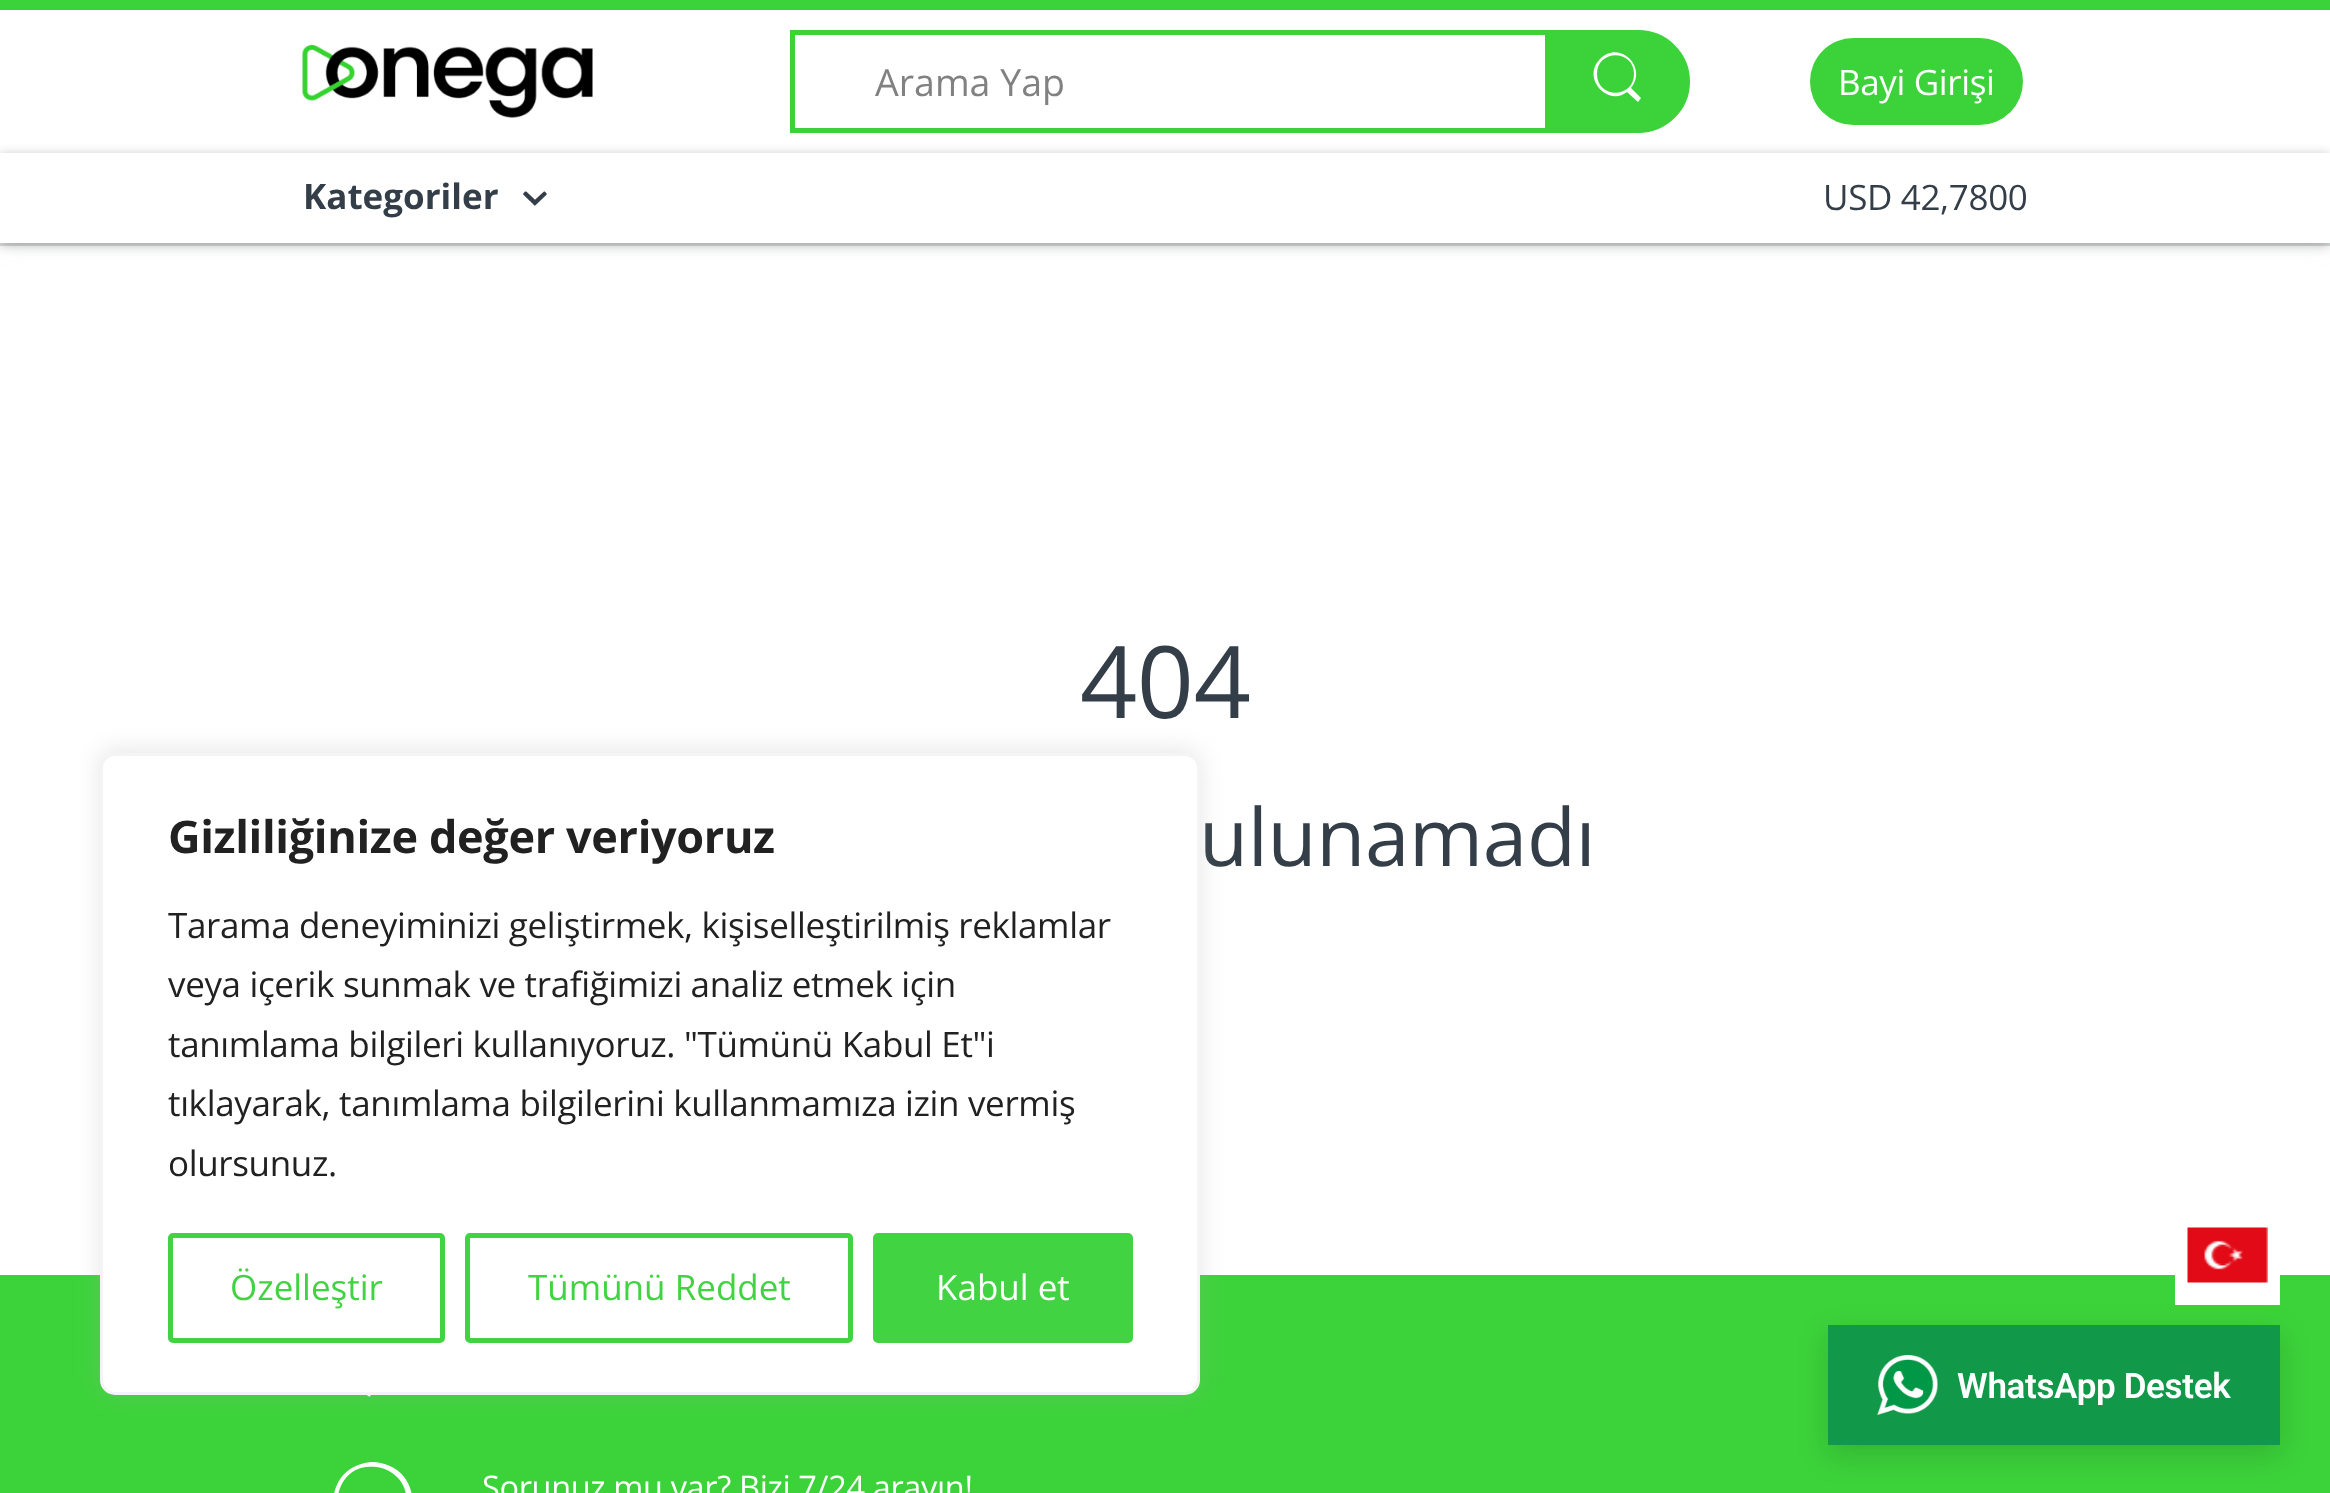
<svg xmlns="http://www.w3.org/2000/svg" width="2330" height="1493">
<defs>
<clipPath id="clip1"><path d="M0 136h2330v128h-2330zm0 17h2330v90h-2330z" clip-rule="evenodd"/></clipPath>
</defs>
<rect width="100%" height="100%" fill="#fff"/>
<rect y="243" width="2330" height="3" fill="#ddd"/>
<rect y="3" width="2330" height="242" fill="#97a4af1a" filter="blur(12.5px)"/>
<rect y="10" width="2330" height="233" fill="#fff"/>
<rect width="2330" height="10" fill="#3cd33a"/>
<image x="302" y="45" width="291" height="73" href="media/1.png"/>
<rect x="790" y="30" width="758" height="5" fill="#3cd33a"/>
<rect x="790" y="128" width="758" height="5" fill="#3cd33a"/>
<rect x="790" y="30" width="5" height="103" fill="#3cd33a"/>
<text x="875" y="96" style="font-family:Open Sans;font-size:37.5px;fill:#818181">Arama Yap</text>
<path d="M1546.5 31.5h92c27.5 0 50 22.5 50 50c0 27.5-22.5 50-50 50h-92z" fill="#3cd33a" stroke="#3cd33a" stroke-width="3"/>
<path d="M1641 98l-3 4l-11-10c-19 15-46-14-27-33c20-20 48 9 31 29zm-44-24c0 25 37 25 37 0c0-25-37-25-37 0z" fill="#fff"/>
<rect x="1810" y="38" width="213" height="87" rx="43.5" fill="#3cd33a"/>
<text x="1838" y="95" style="font-family:Open Sans;font-size:35px;letter-spacing:-0.35px;fill:#fff">Bayi Girişi</text>
<g clip-path="url(#clip1)">
<rect y="155" width="2330" height="90" fill="#00000042" filter="blur(6px)"/>
</g>
<path d="M313 153h355c5.5 0 10 4.5 10 10v80h-375v-80c0-5.5 4.5-10 10-10z" fill="#fff"/>
<text x="303" y="209" style="font-family:Open Sans;font-size:35px;font-weight:bold;fill:#333e48">Kategoriler</text>
<image x="523" y="191" width="24" height="15" href="media/2.png"/>
<text x="1823" y="210" style="font-family:Open Sans;font-size:35px;letter-spacing:-0.35px;fill:#333e48">USD 42,7800</text>
<text x="1080" y="718" style="font-family:Open Sans;font-size:100px;letter-spacing:-0.35px;fill:#333e48">404</text>
<text x="1199" y="866" style="font-family:Open Sans;font-size:80px;letter-spacing:-0.35px;fill:#333e48">ulunamadı</text>
<rect y="1275" width="2330" height="218" fill="#3cd33a"/>
<image x="367" y="1395" width="4" height="2" href="media/5.png"/>
<rect x="100" y="750" width="1100" height="643" rx="15" fill="#acabab4d" filter="blur(12.5px)"/>
<rect x="101.5" y="754.5" width="1097" height="639" rx="13.5" fill="#fff" stroke="#f4f4f4" stroke-width="3"/>
<text x="168" y="853" style="font-family:Open Sans;font-size:45px;font-weight:bold;letter-spacing:-0.35px;fill:#212121">Gizliliğinize değer veriyoruz</text>
<text x="168" y="938" style="font-family:Open Sans;font-size:35px;letter-spacing:-0.35px;fill:#212121">Tarama deneyiminizi geliştirmek, kişiselleştirilmiş reklamlar</text>
<text x="168" y="997" style="font-family:Open Sans;font-size:35px;letter-spacing:-0.35px;fill:#212121">veya içerik sunmak ve trafiğimizi analiz etmek için</text>
<text x="168" y="1057" style="font-family:Open Sans;font-size:35px;letter-spacing:-0.35px;fill:#212121">tanımlama bilgileri kullanıyoruz. "Tümünü Kabul Et"i</text>
<text x="168" y="1116" style="font-family:Open Sans;font-size:35px;letter-spacing:-0.35px;fill:#212121">tıklayarak, tanımlama bilgilerini kullanmamıza izin vermiş</text>
<text x="168" y="1176" style="font-family:Open Sans;font-size:35px;letter-spacing:-0.35px;fill:#212121">olursunuz.</text>
<rect x="170.5" y="1235.5" width="272" height="105" rx="2.5" fill="none" stroke="#42d343" stroke-width="5"/>
<text x="230" y="1300" style="font-family:Open Sans;font-size:35px;fill:#42d343">Özelleştir</text>
<rect x="467.5" y="1235.5" width="383" height="105" rx="2.5" fill="none" stroke="#42d343" stroke-width="5"/>
<text x="528" y="1300" style="font-family:Open Sans;font-size:35px;fill:#42d343">Tümünü Reddet</text>
<rect x="875.5" y="1235.5" width="255" height="105" rx="2.5" fill="#42d343" stroke="#42d343" stroke-width="5"/>
<text x="936" y="1300" style="font-family:Open Sans;font-size:35px;fill:#fff">Kabul et</text>
<rect x="2175" y="1275" width="105" height="30" fill="#fff"/>
<image x="2187" y="1227" width="81" height="56" href="media/3.png"/>
<rect x="1828" y="1335" width="452" height="120" fill="#00000026" filter="blur(15px)"/>
<rect x="1828" y="1325" width="452" height="120" fill="#119849"/>
<image x="1877" y="1355" width="61" height="60" href="media/4.png"/>
<text x="1957" y="1398" style="font-family:Roboto;font-size:35px;font-weight:600;letter-spacing:-0.35px;fill:#fff">WhatsApp Destek</text>
<image x="334" y="1462" width="78" height="31" href="media/6.png"/>
<text x="482" y="1499" style="font-family:Open Sans;font-size:32.5px;letter-spacing:-0.35px;fill:#fff">Sorunuz mu var? Bizi 7/24 arayın!</text>
</svg>
